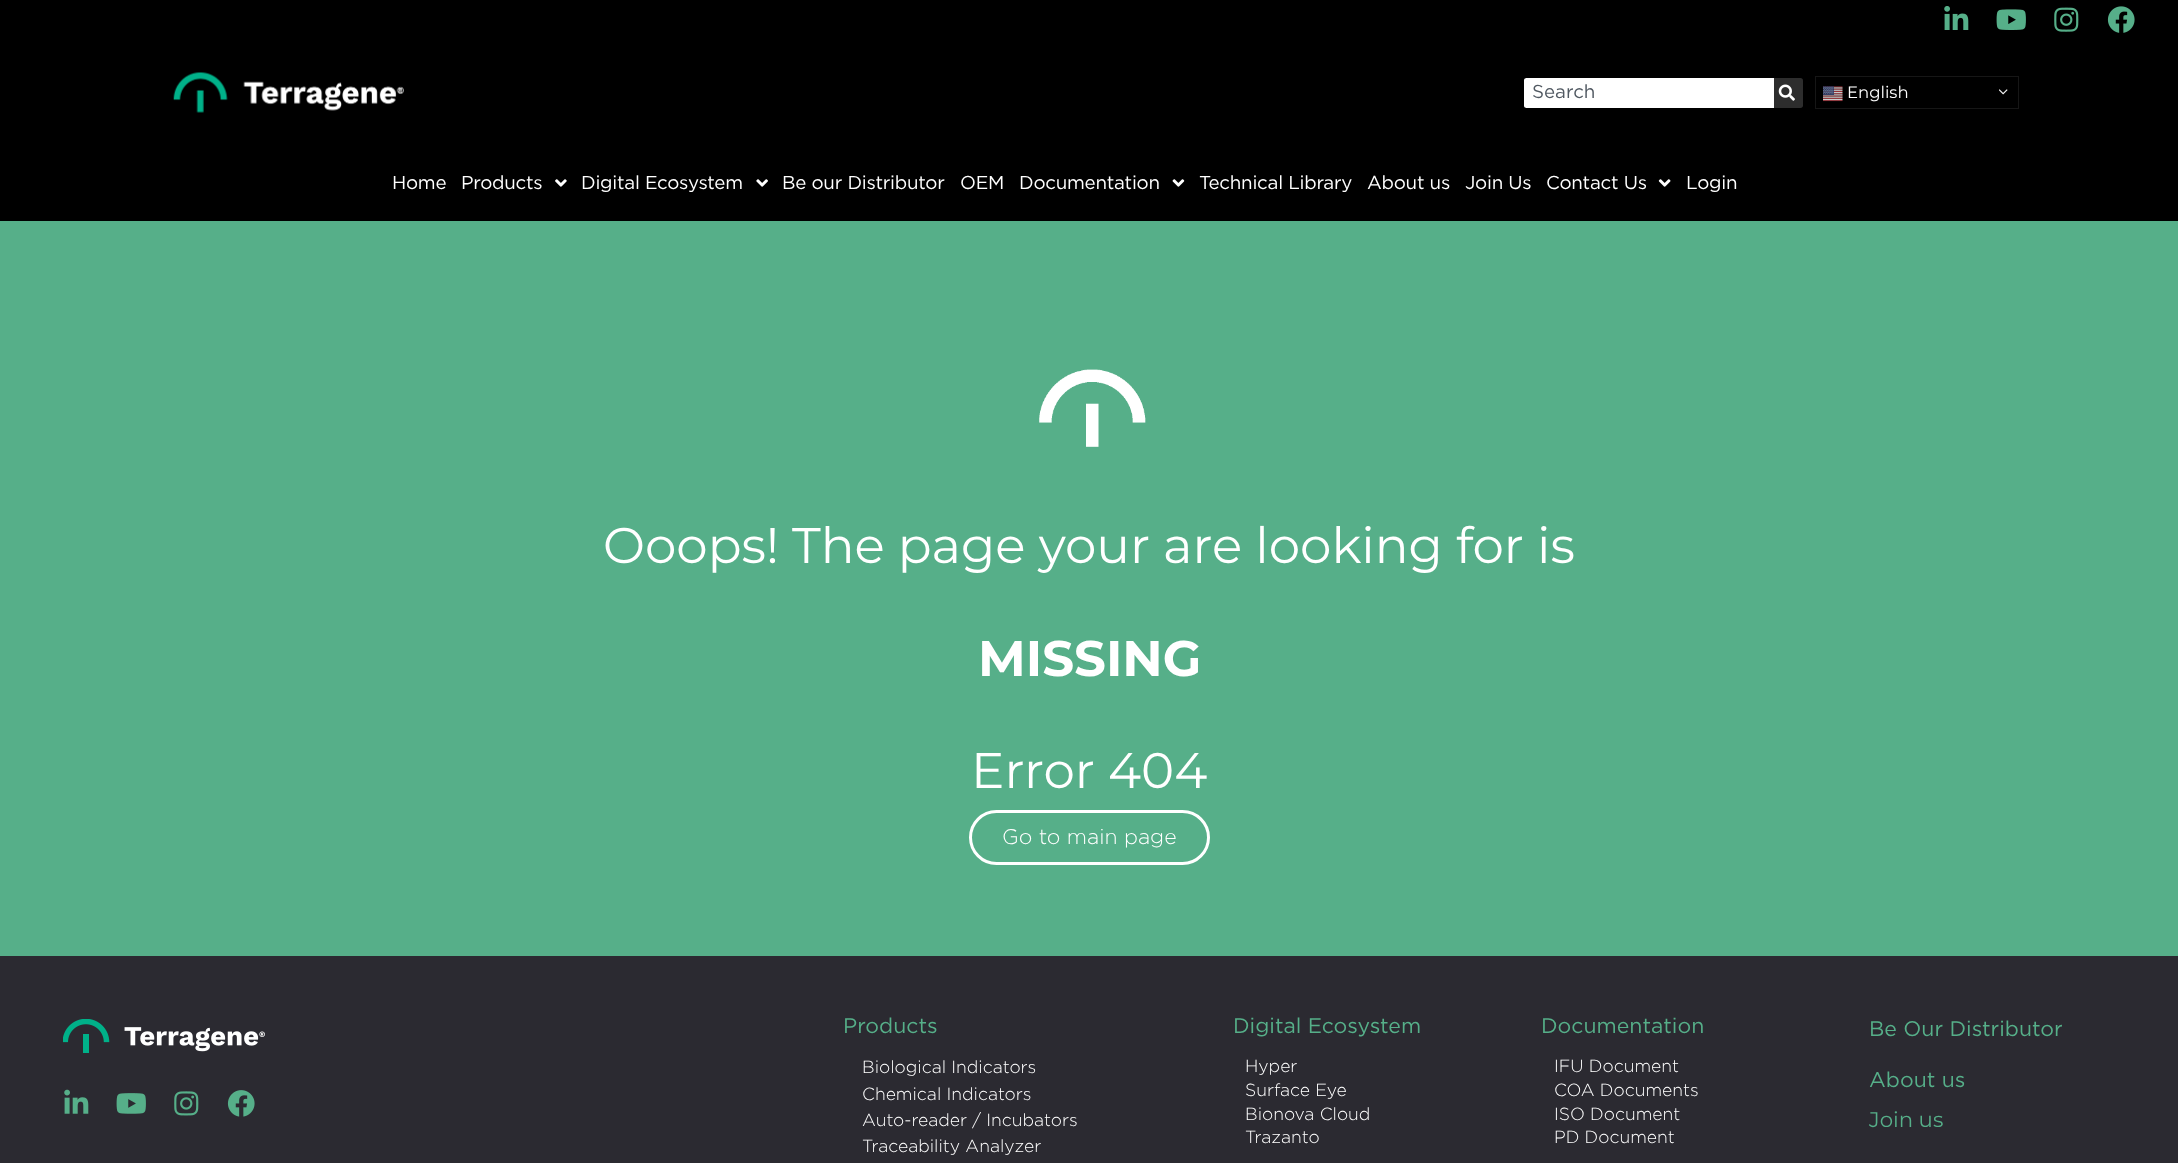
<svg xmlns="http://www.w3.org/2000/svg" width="2178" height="1163">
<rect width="100%" height="100%" fill="#56af89"/>
<rect width="2178" height="145" fill="#000"/>
<image x="1944" y="6" width="25" height="24" href="media/1.png"/>
<image x="1996" y="9" width="30" height="21" href="media/2.png"/>
<image x="2054" y="7" width="25" height="25" href="media/3.png"/>
<image x="2107" y="6" width="28" height="27" href="media/4.png"/>
<image x="173" y="72" width="231" height="41" href="media/5.png"/>
<path d="M1526.5 78h247.5v30h-247.5c-1.5 0-2.5-1-2.5-2.5v-25c0-1.5 1-2.5 2.5-2.5z" fill="#fff"/>
<text x="1532" y="98" style="font-family:Gotham;font-size:18.75px;fill:#515962">Search</text>
<path d="M1774 78h26.5c1.5 0 2.5 1 2.5 2.5v25c0 1.5-1 2.5-2.5 2.5h-26.5z" fill="#2d2d2d"/>
<image x="1778" y="84" width="17" height="17" href="media/6.png"/>
<rect x="1815.5" y="76.5" width="203" height="32" fill="none" stroke="#161616"/>
<image x="1823" y="86" width="20" height="16" href="media/7.png"/>
<text x="1847" y="98" style="font-family:Montserrat;font-size:16.5px;fill:#fff">English</text>
<image x="1999" y="89" width="9" height="6" href="media/8.png"/>
<rect y="145" width="2178" height="76" fill="#000"/>
<text x="392" y="189" style="font-family:Gotham;font-size:18.75px;letter-spacing:-0.25px;fill:#fff">Home</text>
<text x="461" y="189" style="font-family:Gotham;font-size:18.75px;letter-spacing:-0.25px;fill:#fff">Products</text>
<image x="555" y="179" width="12" height="8" href="media/9.png"/>
<text x="581" y="189" style="font-family:Gotham;font-size:18.75px;letter-spacing:-0.25px;fill:#fff">Digital Ecosystem</text>
<image x="756" y="179" width="12" height="8" href="media/10.png"/>
<text x="782" y="189" style="font-family:Gotham;font-size:18.75px;letter-spacing:-0.25px;fill:#fff">Be our Distributor</text>
<text x="960" y="189" style="font-family:Gotham;font-size:18.75px;letter-spacing:-0.25px;fill:#fff">OEM</text>
<text x="1019" y="189" style="font-family:Gotham;font-size:18.75px;letter-spacing:-0.25px;fill:#fff">Documentation</text>
<image x="1172" y="179" width="13" height="8" href="media/11.png"/>
<text x="1199" y="189" style="font-family:Gotham;font-size:18.75px;letter-spacing:-0.25px;fill:#fff">Technical Library</text>
<text x="1367" y="189" style="font-family:Gotham;font-size:18.75px;letter-spacing:-0.25px;fill:#fff">About us</text>
<text x="1465" y="189" style="font-family:Gotham;font-size:18.75px;letter-spacing:-0.25px;fill:#fff">Join Us</text>
<text x="1546" y="189" style="font-family:Gotham;font-size:18.75px;letter-spacing:-0.25px;fill:#fff">Contact Us</text>
<image x="1658" y="179" width="13" height="8" href="media/12.png"/>
<text x="1686" y="189" style="font-family:Gotham;font-size:18.75px;letter-spacing:-0.25px;fill:#fff">Login</text>
<image x="1039" y="369" width="107" height="78" href="media/13.png"/>
<text x="603" y="563" style="font-family:Montserrat;font-size:50px;fill:#fff">Ooops! The page your are looking for is</text>
<text x="978" y="676" style="font-family:Montserrat;font-size:50px;font-weight:bold;fill:#fff">MISSING</text>
<text x="971" y="788" style="font-family:Montserrat;font-size:50px;fill:#fff">Error 404</text>
<rect x="970.5" y="811.5" width="238" height="52" rx="26" fill="none" stroke="#fff" stroke-width="3"/>
<text x="1002" y="844" style="font-family:Gotham;font-size:21.25px;font-weight:300;fill:#fff">Go to main page</text>
<rect y="956" width="2178" height="207" fill="#2b2a31"/>
<image x="63" y="1019" width="202" height="34" href="media/14.png"/>
<image x="64" y="1089" width="25" height="25" href="media/15.png"/>
<image x="116" y="1093" width="30" height="21" href="media/16.png"/>
<image x="174" y="1091" width="25" height="25" href="media/17.png"/>
<image x="227" y="1090" width="28" height="27" href="media/18.png"/>
<text x="843" y="1033" style="font-family:Gotham;font-size:21.25px;fill:#56af89">Products</text>
<text x="862" y="1073" style="font-family:Gotham;font-size:17.5px;font-weight:300;fill:#fff">Biological Indicators</text>
<text x="862" y="1100" style="font-family:Gotham;font-size:17.5px;font-weight:300;fill:#fff">Chemical Indicators</text>
<text x="862" y="1126" style="font-family:Gotham;font-size:17.5px;font-weight:300;fill:#fff">Auto-reader / Incubators</text>
<text x="862" y="1152" style="font-family:Gotham;font-size:17.5px;font-weight:300;fill:#fff">Traceability Analyzer</text>
<text x="1233" y="1033" style="font-family:Gotham;font-size:21.25px;fill:#56af89">Digital Ecosystem</text>
<text x="1245" y="1072" style="font-family:Gotham;font-size:17.5px;font-weight:300;fill:#fff">Hyper</text>
<text x="1245" y="1096" style="font-family:Gotham;font-size:17.5px;font-weight:300;fill:#fff">Surface Eye</text>
<text x="1245" y="1120" style="font-family:Gotham;font-size:17.5px;font-weight:300;fill:#fff">Bionova Cloud</text>
<text x="1245" y="1143" style="font-family:Gotham;font-size:17.5px;font-weight:300;fill:#fff">Trazanto</text>
<text x="1541" y="1033" style="font-family:Gotham;font-size:21.25px;fill:#56af89">Documentation</text>
<text x="1554" y="1072" style="font-family:Gotham;font-size:17.5px;font-weight:300;fill:#fff">IFU Document</text>
<text x="1554" y="1096" style="font-family:Gotham;font-size:17.5px;font-weight:300;fill:#fff">COA Documents</text>
<text x="1554" y="1120" style="font-family:Gotham;font-size:17.5px;font-weight:300;fill:#fff">ISO Document</text>
<text x="1554" y="1143" style="font-family:Gotham;font-size:17.5px;font-weight:300;fill:#fff">PD Document</text>
<text x="1869" y="1036" style="font-family:Gotham;font-size:21.25px;fill:#56af89">Be Our Distributor</text>
<text x="1869" y="1087" style="font-family:Gotham;font-size:21.25px;fill:#56af89">About us</text>
<text x="1869" y="1127" style="font-family:Montserrat;font-size:21.25px;fill:#56af89">Join us</text>
</svg>
